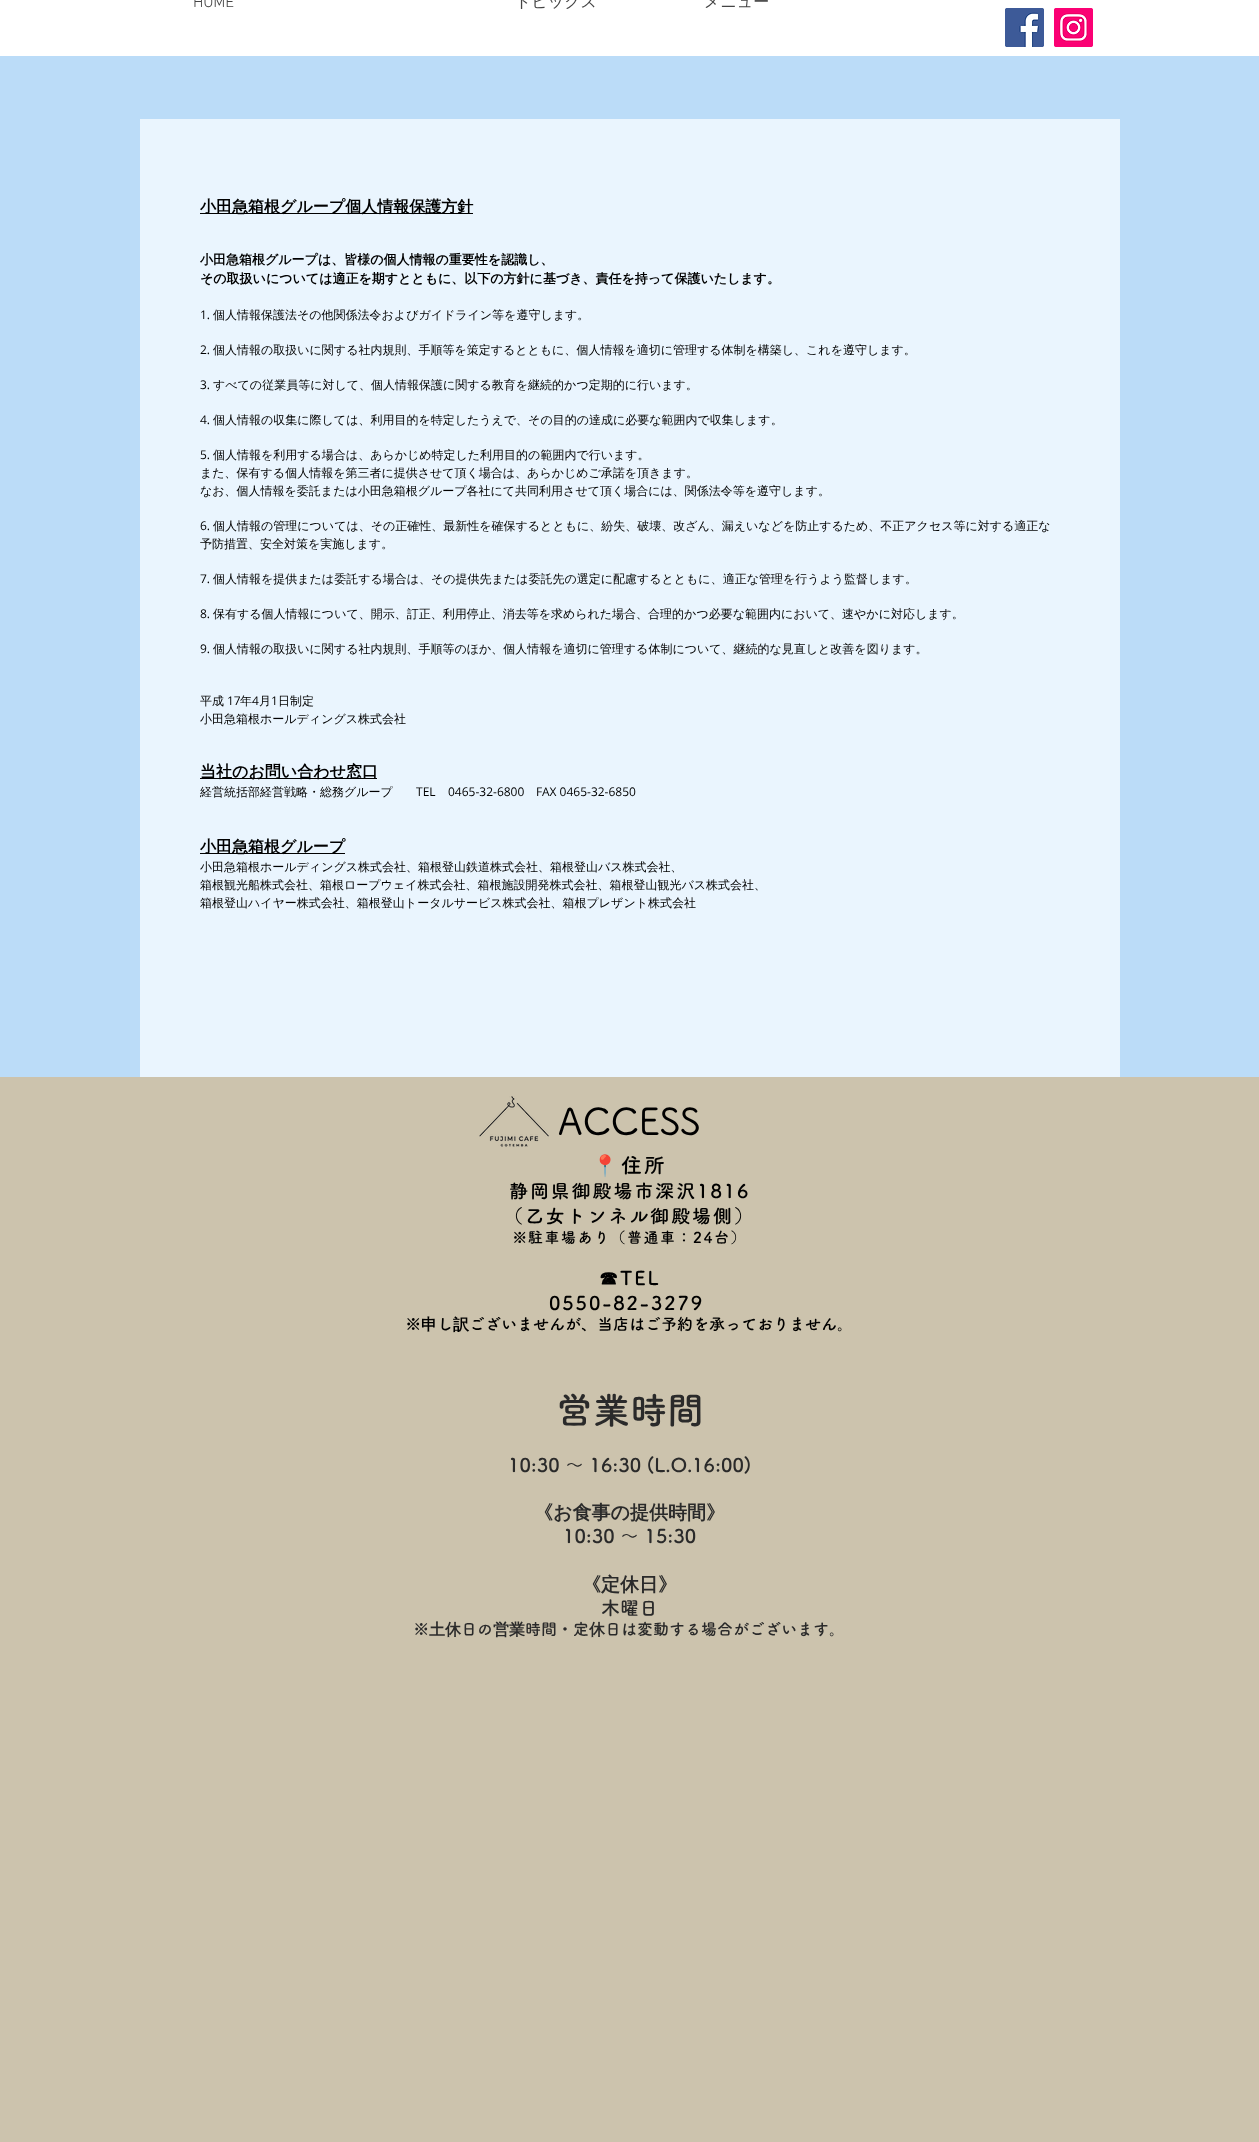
<svg xmlns="http://www.w3.org/2000/svg" width="1259" height="2142">
<rect width="100%" height="100%" fill="#bbdcf8"/>
<rect width="1259" height="56" fill="#fff"/>
<text x="193" y="7" style="font-family:'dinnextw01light';font-size:16px;font-weight:300;fill:#444">HOME</text>
<text x="515" y="7" style="font-family:WenQuanYi Zen Hei;font-size:16px;font-weight:500;fill:#444">トピックス</text>
<text x="704" y="7" style="font-family:WenQuanYi Zen Hei;font-size:16px;font-weight:500;fill:#444">メニュー</text>
<image x="1005" y="8" width="39" height="39" href="media/1.png"/>
<image x="1054" y="8" width="39" height="39" href="media/2.png"/>
<rect x="140" y="119" width="980" height="958" fill="#eaf5fe"/>
<rect x="200" y="213" width="273" height="1" fill="#000"/>
<text x="200" y="212" style="font-family:WenQuanYi Zen Hei;font-size:16px;font-weight:bold;fill:#000">小田急箱根グループ個人情報保護方針</text>
<text x="200" y="264" style="font-family:WenQuanYi Zen Hei;font-size:13px;font-weight:bold;fill:#000">小田急箱根グループは、皆様の個人情報の重要性を認識し、</text>
<text x="200" y="283" style="font-family:WenQuanYi Zen Hei;font-size:13px;font-weight:bold;fill:#000">その取扱いについては適正を期すとともに、以下の方針に基づき、責任を持って保護いたします。</text>
<text x="200" y="319" style="font-family:Open Sans;font-size:12px;fill:#000">1.</text>
<text x="213" y="319" style="font-family:WenQuanYi Zen Hei;font-size:12px;font-weight:500;fill:#000">個人情報保護法その他関係法令およびガイドライン等を遵守します。</text>
<text x="200" y="354" style="font-family:Open Sans;font-size:12px;fill:#000">2.</text>
<text x="213" y="354" style="font-family:WenQuanYi Zen Hei;font-size:12px;font-weight:500;fill:#000">個人情報の取扱いに関する社内規則、手順等を策定するとともに、個人情報を適切に管理する体制を構築し、これを遵守します。</text>
<text x="200" y="389" style="font-family:Open Sans;font-size:12px;fill:#000">3.</text>
<text x="213" y="389" style="font-family:WenQuanYi Zen Hei;font-size:12px;font-weight:500;fill:#000">すべての従業員等に対して、個人情報保護に関する教育を継続的かつ定期的に行います。</text>
<text x="200" y="424" style="font-family:Open Sans;font-size:12px;fill:#000">4.</text>
<text x="213" y="424" style="font-family:WenQuanYi Zen Hei;font-size:12px;font-weight:500;fill:#000">個人情報の収集に際しては、利用目的を特定したうえで、その目的の達成に必要な範囲内で収集します。</text>
<text x="200" y="459" style="font-family:Open Sans;font-size:12px;fill:#000">5.</text>
<text x="213" y="459" style="font-family:WenQuanYi Zen Hei;font-size:12px;font-weight:500;fill:#000">個人情報を利用する場合は、あらかじめ特定した利用目的の範囲内で行います。</text>
<text x="200" y="477" style="font-family:WenQuanYi Zen Hei;font-size:12px;font-weight:500;fill:#000">また、保有する個人情報を第三者に提供させて頂く場合は、あらかじめご承諾を頂きます。</text>
<text x="200" y="495" style="font-family:WenQuanYi Zen Hei;font-size:12px;font-weight:500;fill:#000">なお、個人情報を委託または小田急箱根グループ各社にて共同利用させて頂く場合には、関係法令等を遵守します。</text>
<text x="200" y="530" style="font-family:Open Sans;font-size:12px;fill:#000">6.</text>
<text x="213" y="530" style="font-family:WenQuanYi Zen Hei;font-size:12px;font-weight:500;fill:#000">個人情報の管理については、その正確性、最新性を確保するとともに、紛失、破壊、改ざん、漏えいなどを防止するため、不正アクセス等に対する適正な</text>
<text x="200" y="548" style="font-family:WenQuanYi Zen Hei;font-size:12px;font-weight:500;fill:#000">予防措置、安全対策を実施します。</text>
<text x="200" y="583" style="font-family:Open Sans;font-size:12px;fill:#000">7.</text>
<text x="213" y="583" style="font-family:WenQuanYi Zen Hei;font-size:12px;font-weight:500;fill:#000">個人情報を提供または委託する場合は、その提供先または委託先の選定に配慮するとともに、適正な管理を行うよう監督します。</text>
<text x="200" y="618" style="font-family:Open Sans;font-size:12px;fill:#000">8.</text>
<text x="213" y="618" style="font-family:WenQuanYi Zen Hei;font-size:12px;font-weight:500;fill:#000">保有する個人情報について、開示、訂正、利用停止、消去等を求められた場合、合理的かつ必要な範囲内において、速やかに対応します。</text>
<text x="200" y="653" style="font-family:Open Sans;font-size:12px;fill:#000">9.</text>
<text x="213" y="653" style="font-family:WenQuanYi Zen Hei;font-size:12px;font-weight:500;fill:#000">個人情報の取扱いに関する社内規則、手順等のほか、個人情報を適切に管理する体制について、継続的な見直しと改善を図ります。</text>
<text x="200" y="705" style="font-family:WenQuanYi Zen Hei;font-size:12px;font-weight:500;fill:#000">平成</text>
<text x="227" y="705" style="font-family:Open Sans;font-size:12px;fill:#000">17</text>
<text x="240" y="705" style="font-family:WenQuanYi Zen Hei;font-size:12px;font-weight:500;fill:#000">年</text>
<text x="252" y="705" style="font-family:Open Sans;font-size:12px;fill:#000">4</text>
<text x="259" y="705" style="font-family:WenQuanYi Zen Hei;font-size:12px;font-weight:500;fill:#000">月</text>
<text x="271" y="705" style="font-family:Open Sans;font-size:12px;fill:#000">1</text>
<text x="278" y="705" style="font-family:WenQuanYi Zen Hei;font-size:12px;font-weight:500;fill:#000">日制定</text>
<text x="200" y="723" style="font-family:WenQuanYi Zen Hei;font-size:12px;font-weight:500;fill:#000">小田急箱根ホールディングス株式会社</text>
<rect x="200" y="778" width="177" height="1" fill="#000"/>
<text x="200" y="777" style="font-family:WenQuanYi Zen Hei;font-size:16px;font-weight:bold;fill:#000">当社のお問い合わせ窓口</text>
<text x="200" y="796" style="font-family:WenQuanYi Zen Hei;font-size:12px;font-weight:500;fill:#000">経営統括部経営戦略・総務グループ</text>
<text x="416" y="796" style="font-family:Open Sans;font-size:12px;fill:#000">TEL</text>
<text x="448" y="796" style="font-family:Open Sans;font-size:12px;fill:#000">0465-32-6800</text>
<text x="536" y="796" style="font-family:Open Sans;font-size:12px;fill:#000">FAX 0465-32-6850</text>
<rect x="200" y="853" width="145" height="1" fill="#000"/>
<text x="200" y="852" style="font-family:WenQuanYi Zen Hei;font-size:16px;font-weight:bold;fill:#000">小田急箱根グループ</text>
<text x="200" y="871" style="font-family:WenQuanYi Zen Hei;font-size:12px;font-weight:500;fill:#000">小田急箱根ホールディングス株式会社、箱根登山鉄道株式会社、箱根登山バス株式会社、</text>
<text x="200" y="889" style="font-family:WenQuanYi Zen Hei;font-size:12px;font-weight:500;fill:#000">箱根観光船株式会社、箱根ロープウェイ株式会社、箱根施設開発株式会社、箱根登山観光バス株式会社、</text>
<text x="200" y="907" style="font-family:WenQuanYi Zen Hei;font-size:12px;font-weight:500;fill:#000">箱根登山ハイヤー株式会社、箱根登山トータルサービス株式会社、箱根プレザント株式会社</text>
<rect y="1077" width="1259" height="1065" fill="#ccc3ad"/>
<image x="479" y="1096" width="70" height="51" href="media/3.png"/>
<text x="558" y="1135" style="font-family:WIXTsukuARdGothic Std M;font-size:37px;font-weight:500;fill:#000">ACCESS</text>
<text x="592" y="1173" style="font-family:Noto Color Emoji;font-size:21px;font-weight:bold;letter-spacing:2px;fill:#000">📍</text>
<text x="621" y="1173" style="font-family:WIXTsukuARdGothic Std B;font-size:21px;font-weight:bold;letter-spacing:2px;fill:#000">住所</text>
<text x="509" y="1198" style="font-family:WIXTsukuARdGothic Std B;font-size:19px;font-weight:bold;letter-spacing:1.9px;fill:#000">静岡県御殿場市深沢1816</text>
<text x="504" y="1223" style="font-family:WIXTsukuARdGothic Std B;font-size:19px;font-weight:bold;letter-spacing:1.9px;fill:#000">（乙女トンネル御殿場側）</text>
<text x="512" y="1243" style="font-family:WenQuanYi Zen Hei;font-size:15px;font-weight:bold;letter-spacing:1.5px;fill:#000">※</text>
<text x="528" y="1243" style="font-family:WIXTsukuARdGothic Std B;font-size:15px;font-weight:bold;letter-spacing:1.5px;fill:#000">駐車場あり（普通車：24台）</text>
<text x="599" y="1285" style="font-family:WenQuanYi Zen Hei;font-size:19px;font-weight:bold;letter-spacing:1.9px;fill:#000">☎</text>
<text x="620" y="1285" style="font-family:WIXTsukuARdGothic Std B;font-size:19px;font-weight:bold;letter-spacing:1.9px;fill:#000">TEL</text>
<text x="549" y="1310" style="font-family:WIXTsukuARdGothic Std B;font-size:19px;font-weight:bold;letter-spacing:1.9px;fill:#000">0550-82-3279</text>
<text x="405" y="1330" style="font-family:WenQuanYi Zen Hei;font-size:16px;font-weight:bold;fill:#000">※申</text>
<text x="437" y="1330" style="font-family:WIXTsukuARdGothic Std B;font-size:16px;font-weight:bold;fill:#000">し</text>
<text x="453" y="1330" style="font-family:WenQuanYi Zen Hei;font-size:16px;font-weight:bold;fill:#000">訳</text>
<text x="469" y="1330" style="font-family:WIXTsukuARdGothic Std B;font-size:16px;font-weight:bold;fill:#000">ございませんが、当店はご予約を承っておりません。</text>
<text x="556" y="1424" style="font-family:WIXTsukuARdGothic Std B;font-size:37px;font-weight:bold;fill:#2a2a2a">営業時間</text>
<text x="508" y="1472" style="font-family:WIXTsukuARdGothic Std B;font-size:19px;font-weight:bold;fill:#2a2a2a">10:30 ～ 16:30 (L.O.16:00)</text>
<text x="534" y="1519" style="font-family:WenQuanYi Zen Hei;font-size:19px;font-weight:bold;fill:#2a2a2a">《お食事の提供時間》</text>
<text x="563" y="1543" style="font-family:WIXTsukuARdGothic Std B;font-size:19px;font-weight:bold;fill:#2a2a2a">10:30 ～ 15:30</text>
<text x="582" y="1591" style="font-family:WenQuanYi Zen Hei;font-size:19px;font-weight:bold;fill:#2a2a2a">《定休日》</text>
<text x="601" y="1615" style="font-family:WIXTsukuARdGothic Std B;font-size:19px;font-weight:bold;fill:#2a2a2a">木曜日</text>
<text x="413" y="1635" style="font-family:WenQuanYi Zen Hei;font-size:16px;font-weight:bold;fill:#2a2a2a">※土休</text>
<text x="461" y="1635" style="font-family:WIXTsukuARdGothic Std B;font-size:16px;font-weight:bold;fill:#2a2a2a">日の</text>
<text x="493" y="1635" style="font-family:WenQuanYi Zen Hei;font-size:16px;font-weight:bold;fill:#2a2a2a">営業</text>
<text x="525" y="1635" style="font-family:WIXTsukuARdGothic Std B;font-size:16px;font-weight:bold;fill:#2a2a2a">時間・定</text>
<text x="589" y="1635" style="font-family:WenQuanYi Zen Hei;font-size:16px;font-weight:bold;fill:#2a2a2a">休</text>
<text x="605" y="1635" style="font-family:WIXTsukuARdGothic Std B;font-size:16px;font-weight:bold;fill:#2a2a2a">日は変動する場合がございます。</text>
</svg>
